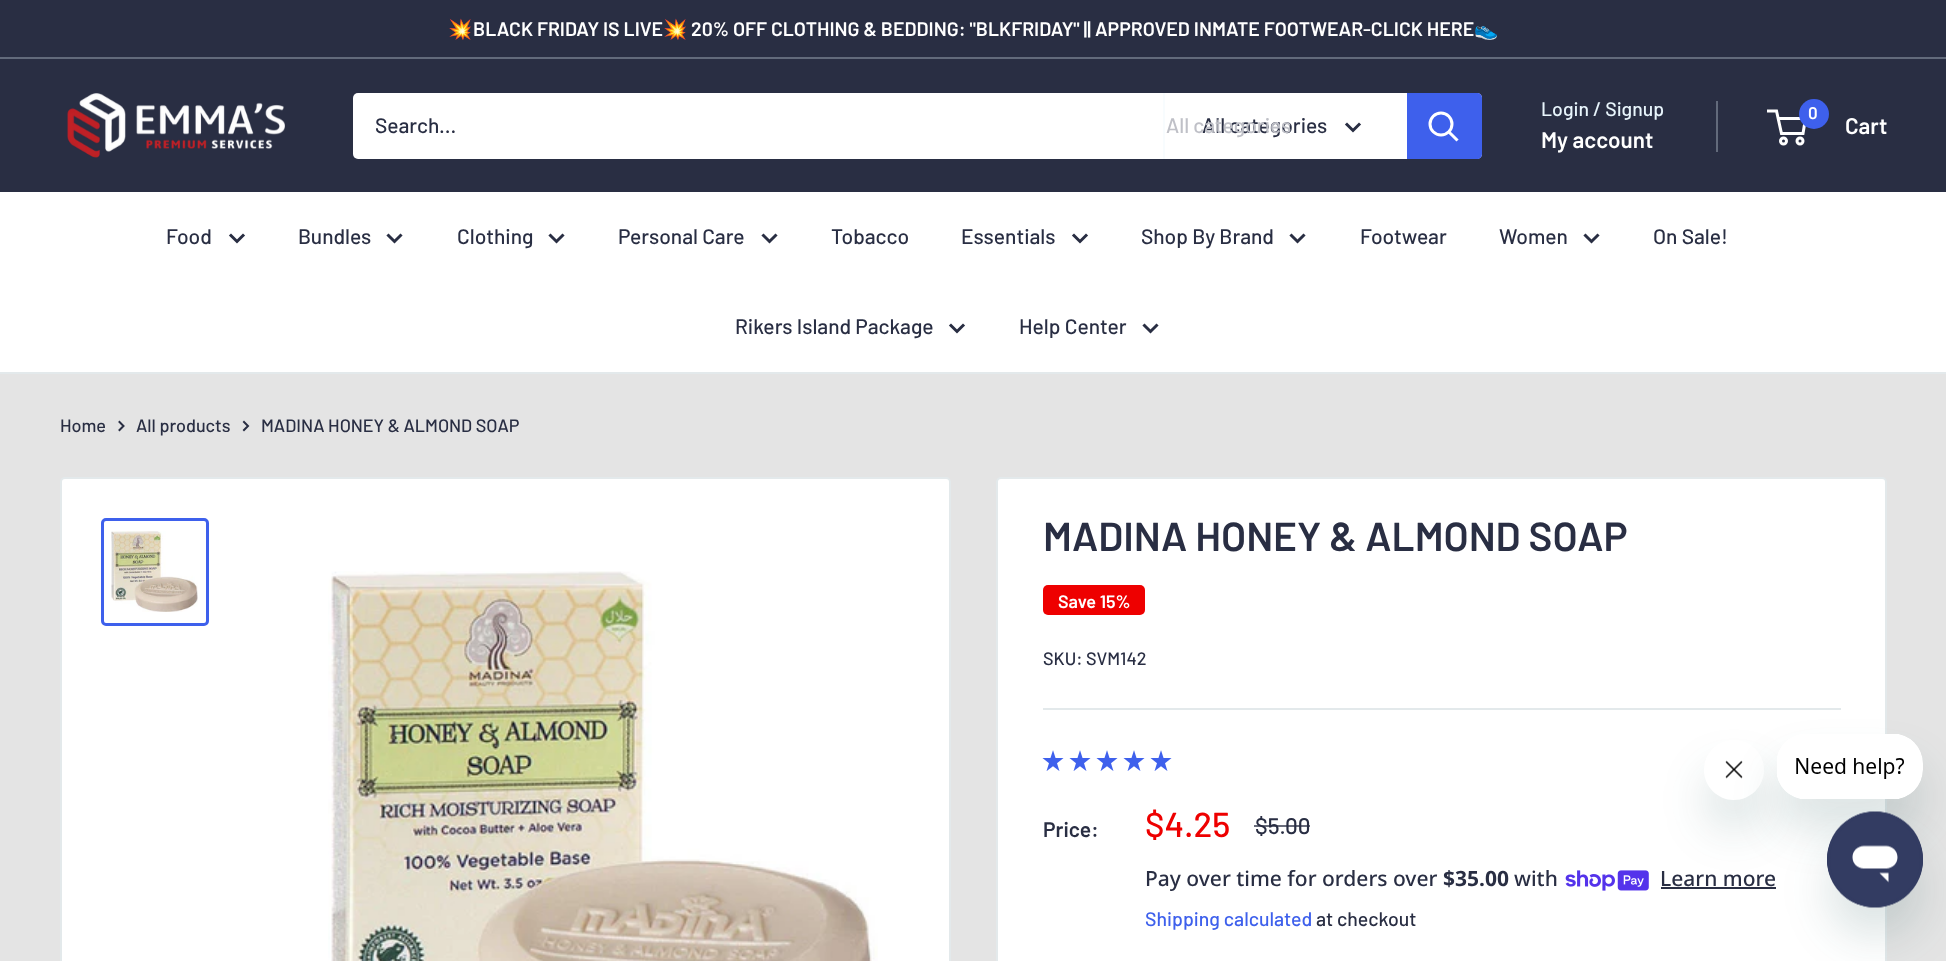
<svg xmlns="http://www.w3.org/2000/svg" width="1946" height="961">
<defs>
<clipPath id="clip1"><path d="M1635 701h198v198h-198zm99 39c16.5 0 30 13.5 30 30c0 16.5-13.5 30-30 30c-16.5 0-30-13.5-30-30c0-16.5 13.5-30 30-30z" clip-rule="evenodd"/></clipPath>
</defs>
<rect width="100%" height="100%" fill="#e4e4e4"/>
<rect width="1946" height="57" fill="#292e43"/>
<rect y="57" width="1946" height="2" fill="#626a7b"/>
<text x="448" y="36" style="font-family:Noto Color Emoji;font-size:19.5px;font-weight:bold;fill:#fff">💥</text>
<text x="473" y="36" style="font-family:Barlow;font-size:19.5px;font-weight:600;fill:#fff">BLACK FRIDAY IS LIVE</text>
<text x="663" y="36" style="font-family:Noto Color Emoji;font-size:19.5px;font-weight:bold;fill:#fff">💥</text>
<text x="691" y="36" style="font-family:Barlow;font-size:19.5px;font-weight:600;fill:#fff">20% OFF CLOTHING &amp; BEDDING: "BLKFRIDAY" || APPROVED INMATE FOOTWEAR-CLICK HERE</text>
<text x="1474" y="36" style="font-family:Noto Color Emoji;font-size:19.5px;font-weight:bold;fill:#fff">👟</text>
<rect y="59" width="1946" height="133" fill="#292e43"/>
<image x="67" y="93" width="218" height="65" href="media/1.png"/>
<rect x="353" y="93" width="1129" height="66" rx="5" fill="#fff"/>
<text x="375" y="133" style="font-family:Barlow;font-size:21px;font-weight:500;fill:#292e43">Search...</text>
<rect x="1163" y="93" width="2" height="66" fill="#f8fcfe"/>
<text x="1202" y="133" style="font-family:Barlow;font-size:21px;font-weight:500;fill:#292e43">All categories</text>
<text x="1166" y="133" style="font-family:Barlow;font-size:21px;font-weight:500;fill:#bfc0c7">All categories</text>
<path d="M1359 124.5l-6 6l-6-6" fill="none" stroke="#292e43" stroke-width="3" stroke-linecap="square"/>
<path d="M1407 93h70c3 0 5 2 5 5v56c0 3-2 5-5 5h-70z" fill="#3e60ec"/>
<path d="M1456.5 139.5l-7.5-7.5" fill="none" stroke="#fff" stroke-width="3" stroke-linecap="square"/>
<circle cx="1441" cy="124" r="11" fill="none" stroke="#fff" stroke-width="3"/>
<text x="1541" y="116" style="font-family:Barlow;font-size:19.5px;font-weight:500;fill:#e8f5fc">Login / Signup</text>
<rect x="1716" y="101" width="2" height="51" fill="#626a7b"/>
<text x="1541" y="148" style="font-family:Barlow;font-size:22.5px;font-weight:600;fill:#fff">My account</text>
<circle cx="1783.5" cy="141" r="3" fill="none" stroke="#fff" stroke-width="3"/>
<circle cx="1800" cy="141" r="3" fill="none" stroke="#fff" stroke-width="3"/>
<path d="M1778 118.5h27.5l-2.5 15h-21.5l-5-22.5h-9.5" fill="none" stroke="#fff" stroke-width="3"/>
<circle cx="1814" cy="114" r="15" fill="#3e60ec"/>
<text x="1808" y="119" style="font-family:Barlow;font-size:17px;font-weight:600;fill:#fff">0</text>
<text x="1845" y="134" style="font-family:Barlow;font-size:22.5px;font-weight:600;fill:#fff">Cart</text>
<rect y="192" width="1946" height="180" fill="#fff"/>
<rect y="372" width="1946" height="2" fill="#e3e9eb"/>
<text x="166" y="244" style="font-family:Barlow;font-size:21px;font-weight:500;fill:#292e43">Food</text>
<path d="M243 235.5l-6 6l-6-6" fill="none" stroke="#292e43" stroke-width="3" stroke-linecap="square"/>
<text x="298" y="244" style="font-family:Barlow;font-size:21px;font-weight:500;fill:#292e43">Bundles</text>
<path d="M400.5 235.5l-6 6l-6-6" fill="none" stroke="#292e43" stroke-width="3" stroke-linecap="square"/>
<text x="457" y="244" style="font-family:Barlow;font-size:21px;font-weight:500;fill:#292e43">Clothing</text>
<path d="M562.5 235.5l-6 6l-6-6" fill="none" stroke="#292e43" stroke-width="3" stroke-linecap="square"/>
<text x="618" y="244" style="font-family:Barlow;font-size:21px;font-weight:500;fill:#292e43">Personal Care</text>
<path d="M775.5 235.5l-6 6l-6-6" fill="none" stroke="#292e43" stroke-width="3" stroke-linecap="square"/>
<text x="831" y="244" style="font-family:Barlow;font-size:21px;font-weight:500;fill:#292e43">Tobacco</text>
<text x="961" y="244" style="font-family:Barlow;font-size:21px;font-weight:500;fill:#292e43">Essentials</text>
<path d="M1086 235.5l-6 6l-6-6" fill="none" stroke="#292e43" stroke-width="3" stroke-linecap="square"/>
<text x="1141" y="244" style="font-family:Barlow;font-size:21px;font-weight:500;fill:#292e43">Shop By Brand</text>
<path d="M1303.5 235.5l-6 6l-6-6" fill="none" stroke="#292e43" stroke-width="3" stroke-linecap="square"/>
<text x="1360" y="244" style="font-family:Barlow;font-size:21px;font-weight:500;fill:#292e43">Footwear</text>
<text x="1499" y="244" style="font-family:Barlow;font-size:21px;font-weight:500;fill:#292e43">Women</text>
<path d="M1597.5 235.5l-6 6l-6-6" fill="none" stroke="#292e43" stroke-width="3" stroke-linecap="square"/>
<text x="1653" y="244" style="font-family:Barlow;font-size:21px;font-weight:500;fill:#292e43">On Sale!</text>
<text x="735" y="334" style="font-family:Barlow;font-size:21px;font-weight:500;fill:#292e43">Rikers Island Package</text>
<path d="M963 325.5l-6 6l-6-6" fill="none" stroke="#292e43" stroke-width="3" stroke-linecap="square"/>
<text x="1019" y="334" style="font-family:Barlow;font-size:21px;font-weight:500;fill:#292e43">Help Center</text>
<path d="M1156.5 325.5l-6 6l-6-6" fill="none" stroke="#292e43" stroke-width="3" stroke-linecap="square"/>
<text x="60" y="432" style="font-family:Barlow;font-size:18px;font-weight:500;fill:#292e43">Home</text>
<path d="M119.5 422l4 4l-4 4" fill="none" stroke="#292e43" stroke-width="2" stroke-linecap="square"/>
<text x="136" y="432" style="font-family:Barlow;font-size:18px;font-weight:500;fill:#292e43">All products</text>
<path d="M244 422l4 4l-4 4" fill="none" stroke="#292e43" stroke-width="2" stroke-linecap="square"/>
<text x="261" y="432" style="font-family:Barlow;font-size:18px;font-weight:500;fill:#292e43">MADINA HONEY &amp; ALMOND SOAP</text>
<rect x="61" y="478" width="889" height="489" rx="4" fill="#fff" stroke="#e3e9eb" stroke-width="2"/>
<rect x="102.5" y="519.5" width="105" height="105" rx="3.5" fill="none" stroke="#3e60ec" stroke-width="3"/>
<image x="111" y="531" width="87" height="81" href="media/2.png"/>
<image x="328" y="571" width="550" height="390" href="media/3.png"/>
<rect x="997" y="478" width="889" height="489" rx="4" fill="#fff" stroke="#e3e9eb" stroke-width="2"/>
<text x="1043" y="551" style="font-family:Barlow;font-size:40.5px;font-weight:600;fill:#292e43">MADINA HONEY &amp; ALMOND SOAP</text>
<rect x="1043" y="585" width="102" height="30" rx="5" fill="#e00"/>
<text x="1058" y="608" style="font-family:Barlow;font-size:18px;font-weight:600;fill:#fff">Save 15%</text>
<text x="1043" y="665" style="font-family:Barlow;font-size:18px;font-weight:500;fill:#292e43">SKU: SVM142</text>
<rect x="1043" y="708" width="798" height="2" fill="#e3e9eb"/>
<image x="1042" y="750" width="22" height="21" href="media/4.png"/>
<image x="1069" y="750" width="22" height="21" href="media/4.png"/>
<image x="1096" y="750" width="22" height="21" href="media/4.png"/>
<image x="1123" y="750" width="22" height="21" href="media/4.png"/>
<image x="1150" y="750" width="22" height="21" href="media/4.png"/>
<text x="1043" y="837" style="font-family:Barlow;font-size:21px;font-weight:600;fill:#292e43">Price:</text>
<text x="1145" y="837" style="font-family:Barlow;font-size:34.5px;font-weight:500;fill:#e00">$4.25</text>
<text x="1255" y="834" style="font-family:Barlow;font-size:22.5px;font-weight:500;fill:#292e43">$5.00</text>
<rect x="1254" y="825" width="56" height="2" fill="#292e43b3"/>
<text x="1145" y="886" style="font-family:Noto Sans;font-size:21px;font-weight:500;fill:#292e43">Pay over time for orders over</text>
<text x="1443" y="886" style="font-family:Noto Sans;font-size:21px;font-weight:bold;fill:#292e43">$35.00</text>
<text x="1514" y="886" style="font-family:Noto Sans;font-size:21px;font-weight:500;fill:#292e43">with</text>
<image x="1565" y="870" width="84" height="21" href="media/5.png"/>
<text x="1660" y="886" style="font-family:Noto Sans;font-size:21px;font-weight:500;fill:#292e43">Learn more</text>
<rect x="1661" y="887" width="115" height="2" fill="#292e43"/>
<text x="1145" y="926" style="font-family:Barlow;font-size:19.5px;font-weight:500;fill:#3e60ec">Shipping calculated</text>
<text x="1316" y="926" style="font-family:Barlow;font-size:19.5px;font-weight:500;fill:#292e43">at checkout</text>
<g clip-path="url(#clip1)">
<rect x="1704" y="770" width="60" height="60" rx="30" fill="#17494d26" filter="blur(22.5px)"/>
</g>
<image x="1723" y="760" width="22" height="40" href="media/7.png"/>
<rect x="1776" y="764" width="147" height="66" rx="30" fill="#17494d26" filter="blur(22.5px)"/>
<image x="1777" y="734" width="146" height="65" href="media/6.png"/>
<rect x="1827" y="842" width="96" height="96" rx="48" fill="#17494d26" filter="blur(22.5px)"/>
<image x="1827" y="811" width="96" height="97" href="media/8.png"/>
</svg>
